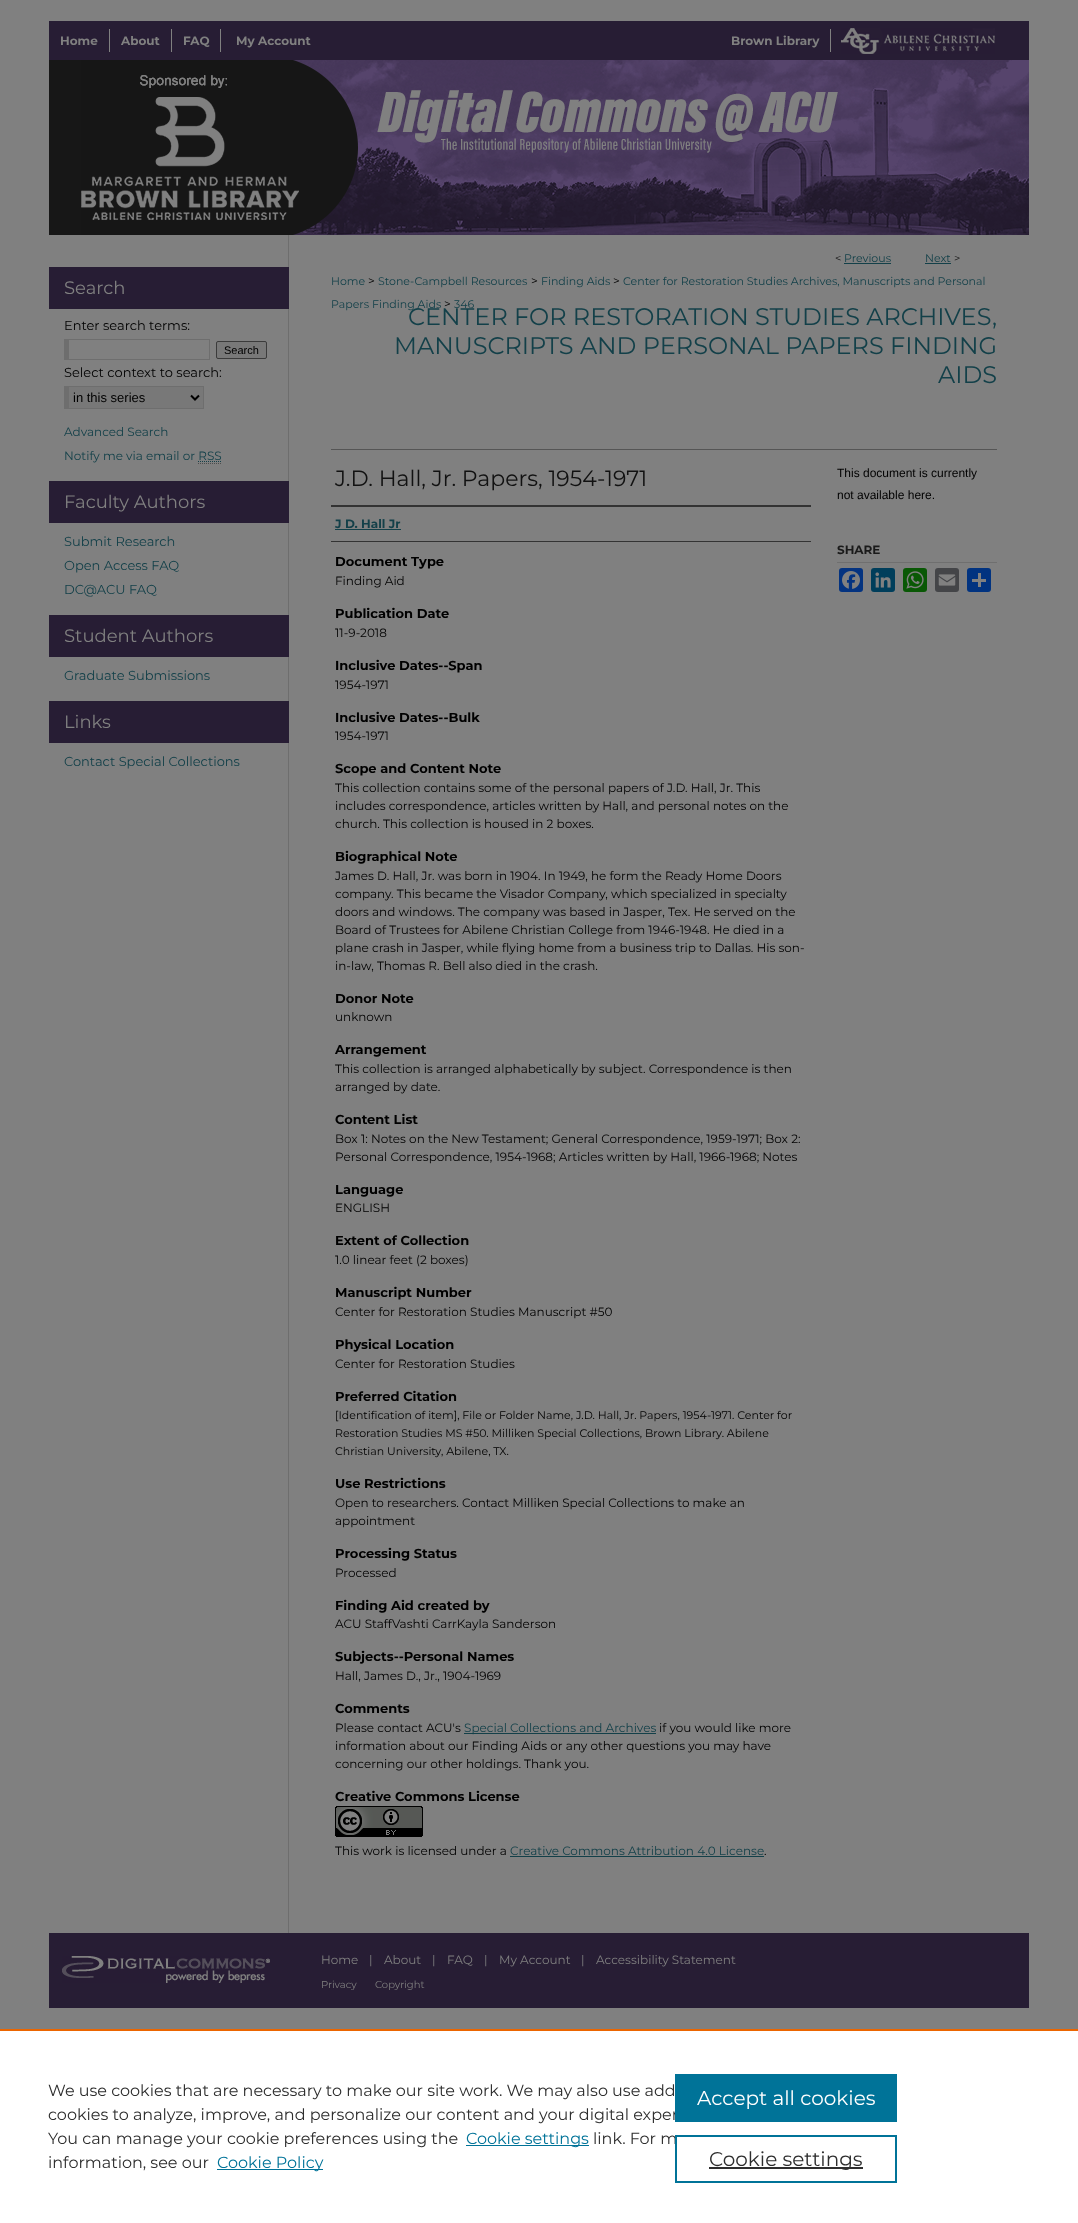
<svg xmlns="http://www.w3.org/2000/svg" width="1078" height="2223">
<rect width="100%" height="100%" fill="#808080"/>
<rect x="49" y="21" width="980" height="39" fill="#271d34"/>
<rect x="109" y="29" width="1" height="23" fill="#808080"/>
<text x="60" y="45" style="font-family:Montserrat;font-size:12px;font-weight:bold;fill:#808080">Home</text>
<rect x="171" y="29" width="1" height="23" fill="#808080"/>
<text x="121" y="45" style="font-family:Montserrat;font-size:12px;font-weight:bold;fill:#808080">About</text>
<rect x="220" y="29" width="1" height="23" fill="#808080"/>
<text x="183" y="45" style="font-family:Montserrat;font-size:12px;font-weight:bold;fill:#808080">FAQ</text>
<text x="236" y="45" style="font-family:Montserrat;font-size:12px;font-weight:bold;fill:#808080">My Account</text>
<rect x="830" y="29" width="1" height="23" fill="#808080"/>
<text x="731" y="45" style="font-family:Montserrat;font-size:12px;font-weight:bold;fill:#808080">Brown Library</text>
<image x="841" y="28" width="154" height="26" href="media/1.png"/>
<rect x="49" y="60" width="32" height="175" fill="#171717"/>
<image x="81" y="60" width="948" height="175" href="media/2.png"/>
<rect x="288" y="235" width="1" height="1698" fill="#6e6e6e"/>
<rect x="49" y="267" width="240" height="42" fill="#271d34"/>
<text x="64" y="294" style="font-family:Montserrat;font-size:18px;fill:#808080">Search</text>
<text x="64" y="330" style="font-family:Montserrat;font-size:13px;fill:#000">Enter search terms:</text>
<rect x="64" y="339" width="146" height="1" fill="#6e6e6e"/>
<rect x="209" y="339" width="1" height="21" fill="#6e6e6e"/>
<rect x="64" y="359" width="146" height="1" fill="#6e6e6e"/>
<rect x="64" y="339" width="5" height="21" fill="#6e6e6e"/>
<rect x="216.5" y="341.5" width="50" height="17" rx="1.5" fill="#787878" stroke="#3b3b3b"/>
<text x="224" y="354" style="font-family:Liberation Sans;font-size:11px;fill:#000">Search</text>
<text x="64" y="377" style="font-family:Montserrat;font-size:13px;fill:#000">Select context to search:</text>
<rect x="69" y="387" width="134" height="21" fill="#787878"/>
<rect x="64" y="386" width="140" height="1" fill="#6e6e6e"/>
<rect x="203" y="386" width="1" height="23" fill="#6e6e6e"/>
<rect x="64" y="408" width="140" height="1" fill="#6e6e6e"/>
<rect x="64" y="386" width="5" height="23" fill="#6e6e6e"/>
<path d="M191 395.5l4 4l4-4" fill="none" stroke="#000" stroke-width="2"/>
<text x="73" y="402" style="font-family:Liberation Sans;font-size:13px;fill:#000">in this series</text>
<text x="64" y="436" style="font-family:Montserrat;font-size:12px;fill:#134049">Advanced Search</text>
<text x="64" y="460" style="font-family:Montserrat;font-size:12px;fill:#134049">Notify me via email or RSS</text>
<path d="M198 461.5h23.5" fill="none" stroke="#134049" stroke-dasharray="1 1"/>
<path d="M198 463.5h24" fill="none" stroke="#4d4d4d" stroke-dasharray="1 1"/>
<rect x="49" y="481" width="240" height="42" fill="#271d34"/>
<text x="64" y="508" style="font-family:Montserrat;font-size:18px;fill:#808080">Faculty Authors</text>
<text x="64" y="546" style="font-family:Montserrat;font-size:13px;fill:#134049">Submit Research</text>
<text x="64" y="570" style="font-family:Montserrat;font-size:13px;fill:#134049">Open Access FAQ</text>
<text x="64" y="594" style="font-family:Montserrat;font-size:13px;fill:#134049">DC@ACU FAQ</text>
<rect x="49" y="615" width="240" height="42" fill="#271d34"/>
<text x="64" y="642" style="font-family:Montserrat;font-size:18px;fill:#808080">Student Authors</text>
<text x="64" y="680" style="font-family:Montserrat;font-size:13px;fill:#134049">Graduate Submissions</text>
<rect x="49" y="701" width="240" height="42" fill="#271d34"/>
<text x="64" y="728" style="font-family:Montserrat;font-size:18px;fill:#808080">Links</text>
<text x="64" y="766" style="font-family:Montserrat;font-size:13px;fill:#134049">Contact Special Collections</text>
<text x="835" y="262" style="font-family:Montserrat;font-size:11px;fill:#111">&lt;</text>
<text x="844" y="262" style="font-family:Montserrat;font-size:11px;fill:#134049">Previous</text>
<rect x="844" y="263" width="47" height="1" fill="#134049"/>
<text x="925" y="262" style="font-family:Montserrat;font-size:11px;fill:#134049">Next</text>
<rect x="925" y="263" width="26" height="1" fill="#134049"/>
<text x="954" y="262" style="font-family:Montserrat;font-size:11px;fill:#111">&gt;</text>
<text x="331" y="285" style="font-family:Montserrat;font-size:11px;fill:#134049">Home</text>
<text x="368" y="285" style="font-family:Montserrat;font-size:12px;fill:#000">&gt;</text>
<text x="378" y="285" style="font-family:Montserrat;font-size:11px;fill:#134049">Stone-Campbell Resources</text>
<text x="531" y="285" style="font-family:Montserrat;font-size:12px;fill:#000">&gt;</text>
<text x="541" y="285" style="font-family:Montserrat;font-size:11px;fill:#134049">Finding Aids</text>
<text x="613" y="285" style="font-family:Montserrat;font-size:12px;fill:#000">&gt;</text>
<text x="623" y="285" style="font-family:Montserrat;font-size:11px;fill:#134049">Center for Restoration Studies Archives, Manuscripts and Personal</text>
<text x="331" y="308" style="font-family:Montserrat;font-size:11px;fill:#134049">Papers Finding Aids</text>
<text x="444" y="308" style="font-family:Montserrat;font-size:12px;fill:#000">&gt;</text>
<text x="454" y="308" style="font-family:Montserrat;font-size:11px;fill:#134049">346</text>
<text x="408" y="325" style="font-family:Montserrat;font-size:24px;fill:#134049">CENTER FOR RESTORATION STUDIES ARCHIVES,</text>
<text x="394" y="354" style="font-family:Montserrat;font-size:24px;fill:#134049">MANUSCRIPTS AND PERSONAL PAPERS FINDING</text>
<text x="938" y="383" style="font-family:Montserrat;font-size:24px;fill:#134049">AIDS</text>
<rect x="331" y="449" width="666" height="1" fill="#555"/>
<text x="335" y="486" style="font-family:Montserrat;font-size:22px;fill:#111">J.D. Hall, Jr. Papers, 1954-1971</text>
<rect x="331" y="505" width="480" height="2" fill="#333"/>
<rect x="331" y="541" width="480" height="1" fill="#333"/>
<text x="335" y="528" style="font-family:Montserrat;font-size:12px;font-weight:bold;fill:#134049">J D. Hall Jr</text>
<rect x="335" y="529" width="66" height="1" fill="#134049"/>
<text x="335" y="566" style="font-family:Montserrat;font-size:13px;font-weight:bold;fill:#000">Document Type</text>
<text x="335" y="585" style="font-family:Montserrat;font-size:12px;fill:#000">Finding Aid</text>
<text x="335" y="618" style="font-family:Montserrat;font-size:13px;font-weight:bold;fill:#000">Publication Date</text>
<text x="335" y="637" style="font-family:Montserrat;font-size:12px;fill:#000">11-9-2018</text>
<text x="335" y="670" style="font-family:Montserrat;font-size:13px;font-weight:bold;fill:#000">Inclusive Dates--Span</text>
<text x="335" y="689" style="font-family:Montserrat;font-size:12px;fill:#000">1954-1971</text>
<text x="335" y="722" style="font-family:Montserrat;font-size:13px;font-weight:bold;fill:#000">Inclusive Dates--Bulk</text>
<text x="335" y="740" style="font-family:Montserrat;font-size:12px;fill:#000">1954-1971</text>
<text x="335" y="773" style="font-family:Montserrat;font-size:13px;font-weight:bold;fill:#000">Scope and Content Note</text>
<text x="335" y="792" style="font-family:Montserrat;font-size:12px;fill:#000">This collection contains some of the personal papers of J.D. Hall, Jr. This</text>
<text x="335" y="810" style="font-family:Montserrat;font-size:12px;fill:#000">includes correspondence, articles written by Hall, and personal notes on the</text>
<text x="335" y="828" style="font-family:Montserrat;font-size:12px;fill:#000">church. This collection is housed in 2 boxes.</text>
<text x="335" y="861" style="font-family:Montserrat;font-size:13px;font-weight:bold;fill:#000">Biographical Note</text>
<text x="335" y="880" style="font-family:Montserrat;font-size:12px;fill:#000">James D. Hall, Jr. was born in 1904. In 1949, he form the Ready Home Doors</text>
<text x="335" y="898" style="font-family:Montserrat;font-size:12px;fill:#000">company. This became the Visador Company, which specialized in specialty</text>
<text x="335" y="916" style="font-family:Montserrat;font-size:12px;fill:#000">doors and windows. The company was based in Jasper, Tex. He served on the</text>
<text x="335" y="934" style="font-family:Montserrat;font-size:12px;fill:#000">Board of Trustees for Abilene Christian College from 1946-1948. He died in a</text>
<text x="335" y="952" style="font-family:Montserrat;font-size:12px;fill:#000">plane crash in Jasper, while flying home from a business trip to Dallas. His son-</text>
<text x="335" y="970" style="font-family:Montserrat;font-size:12px;fill:#000">in-law, Thomas R. Bell also died in the crash.</text>
<text x="335" y="1003" style="font-family:Montserrat;font-size:13px;font-weight:bold;fill:#000">Donor Note</text>
<text x="335" y="1021" style="font-family:Montserrat;font-size:12px;fill:#000">unknown</text>
<text x="335" y="1054" style="font-family:Montserrat;font-size:13px;font-weight:bold;fill:#000">Arrangement</text>
<text x="335" y="1073" style="font-family:Montserrat;font-size:12px;fill:#000">This collection is arranged alphabetically by subject. Correspondence is then</text>
<text x="335" y="1091" style="font-family:Montserrat;font-size:12px;fill:#000">arranged by date.</text>
<text x="335" y="1124" style="font-family:Montserrat;font-size:13px;font-weight:bold;fill:#000">Content List</text>
<text x="335" y="1143" style="font-family:Montserrat;font-size:12px;fill:#000">Box 1: Notes on the New Testament; General Correspondence, 1959-1971; Box 2:</text>
<text x="335" y="1161" style="font-family:Montserrat;font-size:12px;fill:#000">Personal Correspondence, 1954-1968; Articles written by Hall, 1966-1968; Notes</text>
<text x="335" y="1194" style="font-family:Montserrat;font-size:13px;font-weight:bold;fill:#000">Language</text>
<text x="335" y="1212" style="font-family:Montserrat;font-size:12px;fill:#000">ENGLISH</text>
<text x="335" y="1245" style="font-family:Montserrat;font-size:13px;font-weight:bold;fill:#000">Extent of Collection</text>
<text x="335" y="1264" style="font-family:Montserrat;font-size:12px;fill:#000">1.0 linear feet (2 boxes)</text>
<text x="335" y="1297" style="font-family:Montserrat;font-size:13px;font-weight:bold;fill:#000">Manuscript Number</text>
<text x="335" y="1316" style="font-family:Montserrat;font-size:12px;fill:#000">Center for Restoration Studies Manuscript #50</text>
<text x="335" y="1349" style="font-family:Montserrat;font-size:13px;font-weight:bold;fill:#000">Physical Location</text>
<text x="335" y="1368" style="font-family:Montserrat;font-size:12px;fill:#000">Center for Restoration Studies</text>
<text x="335" y="1401" style="font-family:Montserrat;font-size:13px;font-weight:bold;fill:#000">Preferred Citation</text>
<text x="335" y="1419" style="font-family:Montserrat;font-size:11px;fill:#000">[Identification of item], File or Folder Name, J.D. Hall, Jr. Papers, 1954-1971. Center for</text>
<text x="335" y="1437" style="font-family:Montserrat;font-size:11px;fill:#000">Restoration Studies MS #50. Milliken Special Collections, Brown Library. Abilene</text>
<text x="335" y="1455" style="font-family:Montserrat;font-size:11px;fill:#000">Christian University, Abilene, TX.</text>
<text x="335" y="1488" style="font-family:Montserrat;font-size:13px;font-weight:bold;fill:#000">Use Restrictions</text>
<text x="335" y="1507" style="font-family:Montserrat;font-size:12px;fill:#000">Open to researchers. Contact Milliken Special Collections to make an</text>
<text x="335" y="1525" style="font-family:Montserrat;font-size:12px;fill:#000">appointment</text>
<text x="335" y="1558" style="font-family:Montserrat;font-size:13px;font-weight:bold;fill:#000">Processing Status</text>
<text x="335" y="1577" style="font-family:Montserrat;font-size:12px;fill:#000">Processed</text>
<text x="335" y="1610" style="font-family:Montserrat;font-size:13px;font-weight:bold;fill:#000">Finding Aid created by</text>
<text x="335" y="1628" style="font-family:Montserrat;font-size:12px;fill:#000">ACU StaffVashti CarrKayla Sanderson</text>
<text x="335" y="1661" style="font-family:Montserrat;font-size:13px;font-weight:bold;fill:#000">Subjects--Personal Names</text>
<text x="335" y="1680" style="font-family:Montserrat;font-size:12px;fill:#000">Hall, James D., Jr., 1904-1969</text>
<text x="335" y="1713" style="font-family:Montserrat;font-size:13px;font-weight:bold;fill:#000">Comments</text>
<text x="335" y="1732" style="font-family:Montserrat;font-size:12px;fill:#000">Please contact ACU's</text>
<rect x="464" y="1733" width="192" height="1" fill="#134049"/>
<text x="464" y="1732" style="font-family:Montserrat;font-size:12px;fill:#134049">Special Collections and Archives</text>
<text x="659" y="1732" style="font-family:Montserrat;font-size:12px;fill:#000">if you would like more</text>
<text x="335" y="1750" style="font-family:Montserrat;font-size:12px;fill:#000">information about our Finding Aids or any other questions you may have</text>
<text x="335" y="1768" style="font-family:Montserrat;font-size:12px;fill:#000">concerning our other holdings. Thank you.</text>
<text x="335" y="1801" style="font-family:Montserrat;font-size:13px;font-weight:bold;fill:#000">Creative Commons License</text>
<image x="335" y="1806" width="88" height="31" href="media/3.png"/>
<text x="335" y="1855" style="font-family:Montserrat;font-size:12px;fill:#000">This work is licensed under a</text>
<text x="510" y="1855" style="font-family:Montserrat;font-size:12px;fill:#134049">Creative Commons Attribution 4.0 License</text>
<rect x="510" y="1856" width="254" height="1" fill="#134049"/>
<text x="764" y="1855" style="font-family:Montserrat;font-size:12px;fill:#000">.</text>
<text x="837" y="477" style="font-family:Liberation Sans;font-size:12px;fill:#000">This document is currently</text>
<text x="837" y="499" style="font-family:Liberation Sans;font-size:12px;fill:#000">not available here.</text>
<rect x="837" y="562" width="160" height="1" fill="#6f6f6f"/>
<text x="837" y="554" style="font-family:Montserrat;font-size:12px;font-weight:bold;fill:#1a1a1a">SHARE</text>
<rect x="839" y="568" width="24" height="24" rx="3" fill="#043380"/>
<image x="842" y="571" width="18" height="18" href="media/4.png"/>
<rect x="871" y="568" width="24" height="24" rx="3" fill="#003e5b"/>
<image x="875" y="572" width="16" height="16" href="media/5.png"/>
<rect x="903" y="568" width="24" height="24" rx="3" fill="#095805"/>
<image x="906" y="571" width="18" height="18" href="media/6.png"/>
<rect x="935" y="568" width="24" height="24" rx="3" fill="#444548"/>
<image x="938" y="574" width="18" height="12" href="media/7.png"/>
<rect x="967" y="568" width="24" height="24" rx="3" fill="#013380"/>
<rect x="978" y="573" width="3" height="14" fill="#808080"/>
<rect x="972" y="579" width="14" height="3" fill="#808080"/>
<rect x="49" y="1933" width="980" height="75" fill="#271d34"/>
<image x="62" y="1956" width="208" height="27" href="media/8.png"/>
<text x="321" y="1964" style="font-family:Montserrat;font-size:12px;fill:#808080">Home</text>
<text x="369" y="1964" style="font-family:Montserrat;font-size:12px;fill:#808080">|</text>
<text x="384" y="1964" style="font-family:Montserrat;font-size:12px;fill:#808080">About</text>
<text x="432" y="1964" style="font-family:Montserrat;font-size:12px;fill:#808080">|</text>
<text x="447" y="1964" style="font-family:Montserrat;font-size:12px;fill:#808080">FAQ</text>
<text x="484" y="1964" style="font-family:Montserrat;font-size:12px;fill:#808080">|</text>
<text x="499" y="1964" style="font-family:Montserrat;font-size:12px;fill:#808080">My Account</text>
<text x="581" y="1964" style="font-family:Montserrat;font-size:12px;fill:#808080">|</text>
<text x="596" y="1964" style="font-family:Montserrat;font-size:12px;fill:#808080">Accessibility Statement</text>
<text x="321" y="1988" style="font-family:Montserrat;font-size:10px;fill:#808080">Privacy</text>
<text x="375" y="1988" style="font-family:Montserrat;font-size:10px;fill:#808080">Copyright</text>
<rect y="2031" width="1078" height="192" fill="#fff"/>
<rect y="2029" width="1078" height="2" fill="#eb6500"/>
<text x="48" y="2096" style="font-family:Montserrat;font-size:16px;fill:#2e2e2e">We use cookies that are necessary to make our site work. We may also use add</text>
<text x="48" y="2120" style="font-family:Montserrat;font-size:16px;fill:#2e2e2e">cookies to analyze, improve, and personalize our content and your digital exper</text>
<text x="48" y="2144" style="font-family:Montserrat;font-size:16px;fill:#2e2e2e">You can manage your cookie preferences using the</text>
<rect x="466" y="2145" width="123" height="1" fill="#007398"/>
<text x="466" y="2144" style="font-family:Montserrat;font-size:16px;fill:#007398">Cookie settings</text>
<text x="593" y="2144" style="font-family:Montserrat;font-size:16px;fill:#2e2e2e">link. For m</text>
<text x="48" y="2168" style="font-family:Montserrat;font-size:16px;fill:#2e2e2e">information, see our</text>
<rect x="217" y="2169" width="106" height="1" fill="#007398"/>
<text x="217" y="2168" style="font-family:Montserrat;font-size:16px;fill:#007398">Cookie Policy</text>
<rect x="675" y="2074" width="222" height="48" fill="#007398"/>
<text x="697" y="2105" style="font-family:Montserrat;font-size:20px;fill:#fff">Accept all cookies</text>
<rect x="676" y="2136" width="220" height="46" fill="none" stroke="#007398" stroke-width="2"/>
<rect x="709" y="2167" width="154" height="2" fill="#2e2e2e"/>
<text x="709" y="2166" style="font-family:Montserrat;font-size:20px;fill:#2e2e2e">Cookie settings</text>
</svg>
